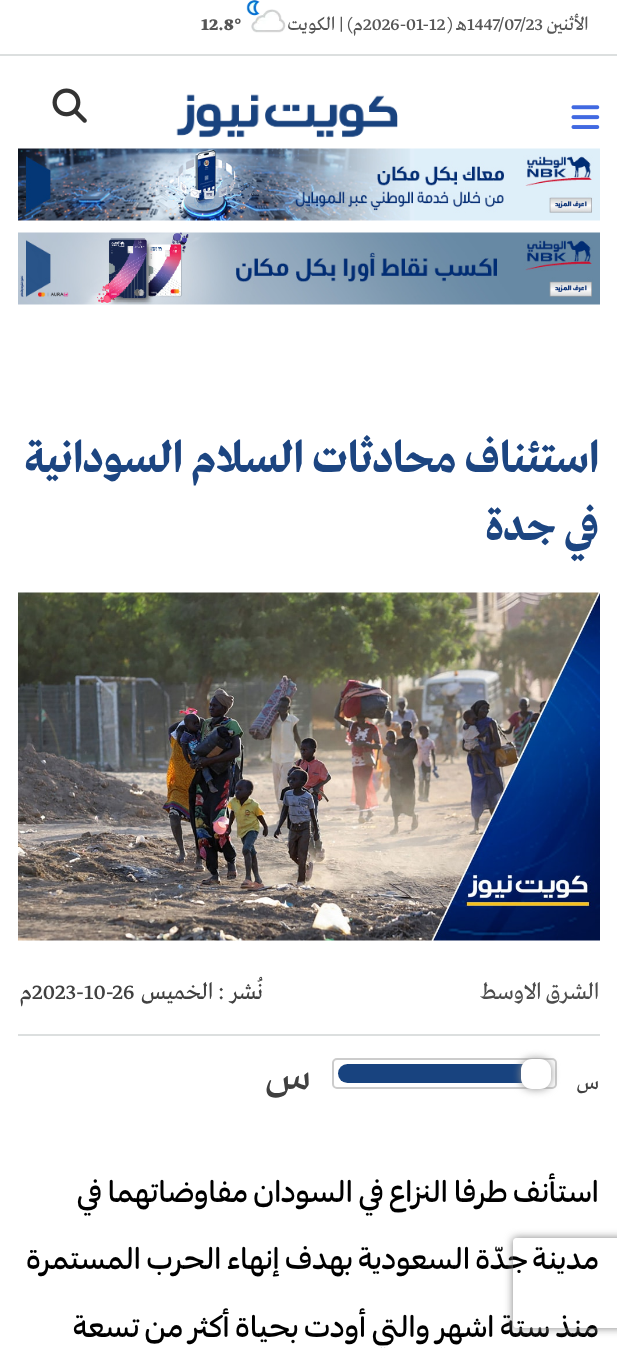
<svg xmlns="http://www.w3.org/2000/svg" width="617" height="1348">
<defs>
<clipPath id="clip1"><path d="M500 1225h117v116h-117zm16 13h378c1.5 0 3 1.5 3 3v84c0 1.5-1.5 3-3 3h-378c-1.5 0-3-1.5-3-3v-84c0-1.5 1.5-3 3-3z" clip-rule="evenodd"/></clipPath>
</defs>
<rect width="100%" height="100%" fill="#fff"/>
<rect y="54" width="617" height="2" fill="#dcdfdf"/>
<text x="588" y="30" style="font-family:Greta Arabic;font-size:19.5px;direction:rtl;fill:#565656">الأثنين</text>
<text x="467" y="30" style="font-family:Greta Arabic;font-size:19.5px;fill:#565656">1447/07/23</text>
<text x="467" y="30" style="font-family:Greta Arabic;font-size:19.5px;direction:rtl;fill:#565656">هـ (</text>
<text x="363" y="30" style="font-family:Greta Arabic;font-size:19.5px;fill:#565656">2026-01-12</text>
<text x="363" y="30" style="font-family:Greta Arabic;font-size:19.5px;direction:rtl;fill:#565656">م) | الكويت</text>
<image x="246" y="0" width="40" height="33" href="media/1.png"/>
<text x="201" y="30" style="font-family:Greta Arabic;font-size:19.5px;font-weight:bold;fill:#565656">12.8°</text>
<image x="571" y="105" width="29" height="24" href="media/2.png"/>
<image x="176" y="94" width="222" height="44" href="media/3.png"/>
<image x="52" y="88" width="35" height="35" href="media/4.png"/>
<image x="18" y="148" width="582" height="73" href="media/5.png"/>
<image x="18" y="232" width="582" height="73" href="media/6.png"/>
<text x="599" y="472" style="font-family:Greta Arabic;font-size:45px;font-weight:bold;direction:rtl;fill:#1c4581">استئناف محادثات السلام السودانية</text>
<text x="599" y="540" style="font-family:Greta Arabic;font-size:45px;font-weight:bold;direction:rtl;fill:#1c4581">في جدة</text>
<image x="18" y="592" width="582" height="349" href="media/7.png"/>
<rect x="18" y="1034" width="582" height="2" fill="#dcdfdf"/>
<text x="599" y="999" style="font-family:Greta Arabic;font-size:24px;direction:rtl;fill:#4d4d4d">الشرق الاوسط</text>
<text x="263" y="999" style="font-family:Greta Arabic;font-size:24px;direction:rtl;fill:#404040">نُشر :</text>
<text x="213" y="999" style="font-family:Greta Arabic;font-size:24px;direction:rtl;fill:#404040">الخميس</text>
<text x="32" y="999" style="font-family:Greta Arabic;font-size:24px;fill:#404040">2023-10-26</text>
<text x="32" y="999" style="font-family:Greta Arabic;font-size:24px;direction:rtl;fill:#404040">م</text>
<text x="599" y="1089" style="font-family:Greta Arabic;font-size:22px;direction:rtl;fill:#404040">س</text>
<rect x="333" y="1059" width="223" height="29" rx="4" fill="none" stroke="#ccc" stroke-width="2"/>
<rect x="338" y="1064" width="213" height="19" rx="9.5" fill="#18437f"/>
<rect x="521" y="1059" width="30" height="30" rx="11" fill="#8f8f8f" filter="blur(4px)"/>
<rect x="521" y="1059" width="30" height="30" rx="11" fill="#fff"/>
<text x="311" y="1089" style="font-family:Greta Arabic;font-size:45px;direction:rtl;fill:#404040">س</text>
<text x="599" y="1202" style="font-family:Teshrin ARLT;font-size:30px;font-weight:500;direction:rtl;fill:#000">استأنف طرفا النزاع في السودان مفاوضاتهما في</text>
<text x="599" y="1269" style="font-family:Teshrin ARLT;font-size:30px;font-weight:500;direction:rtl;fill:#000">مدينة جدّة السعودية بهدف إنهاء الحرب المستمرة</text>
<text x="599" y="1337" style="font-family:Teshrin ARLT;font-size:30px;font-weight:500;direction:rtl;fill:#000">منذ ستة اشهر والتي أودت بحياة أكثر من تسعة</text>
<g clip-path="url(#clip1)">
<rect x="513" y="1238" width="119" height="90" rx="3" fill="#808080" filter="blur(4px)"/>
</g>
</svg>
